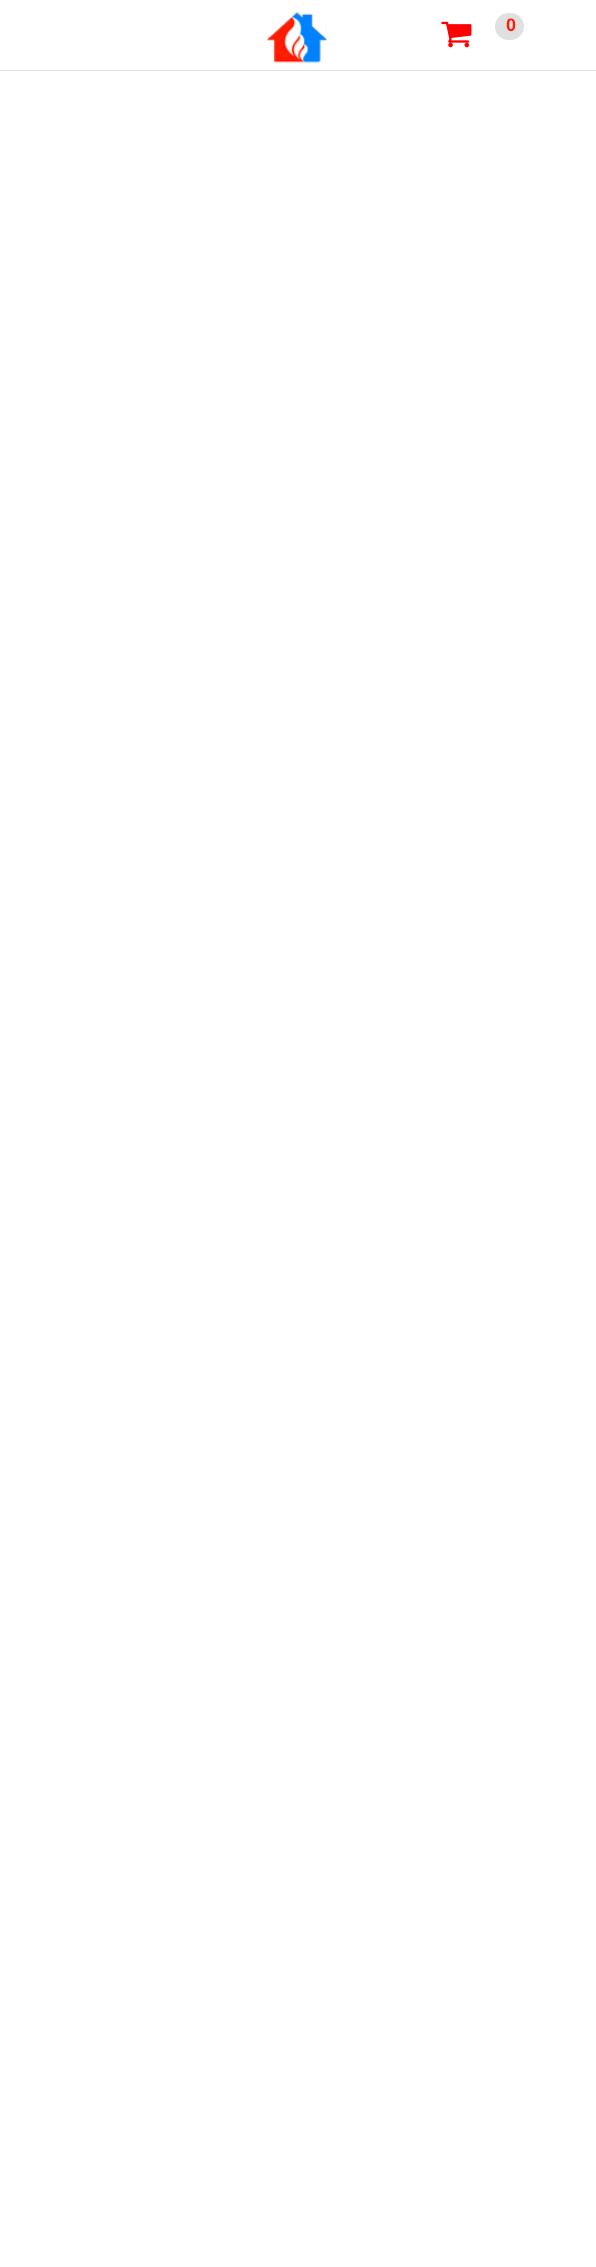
<svg xmlns="http://www.w3.org/2000/svg" width="596" height="2267">
<rect width="100%" height="100%" fill="#fff"/>
<rect y="70" width="596" height="1" fill="#e2e2e2"/>
<image x="267" y="12" width="61" height="51" href="media/1.png"/>
<image x="441" y="21" width="31" height="27" href="media/2.png"/>
<rect x="495" y="13" width="29" height="27" rx="13.5" fill="#e0e0e0"/>
<text x="506" y="31" style="font-family:Liberation Sans;font-size:18px;font-weight:bold;fill:#ff1c00">0</text>
</svg>
